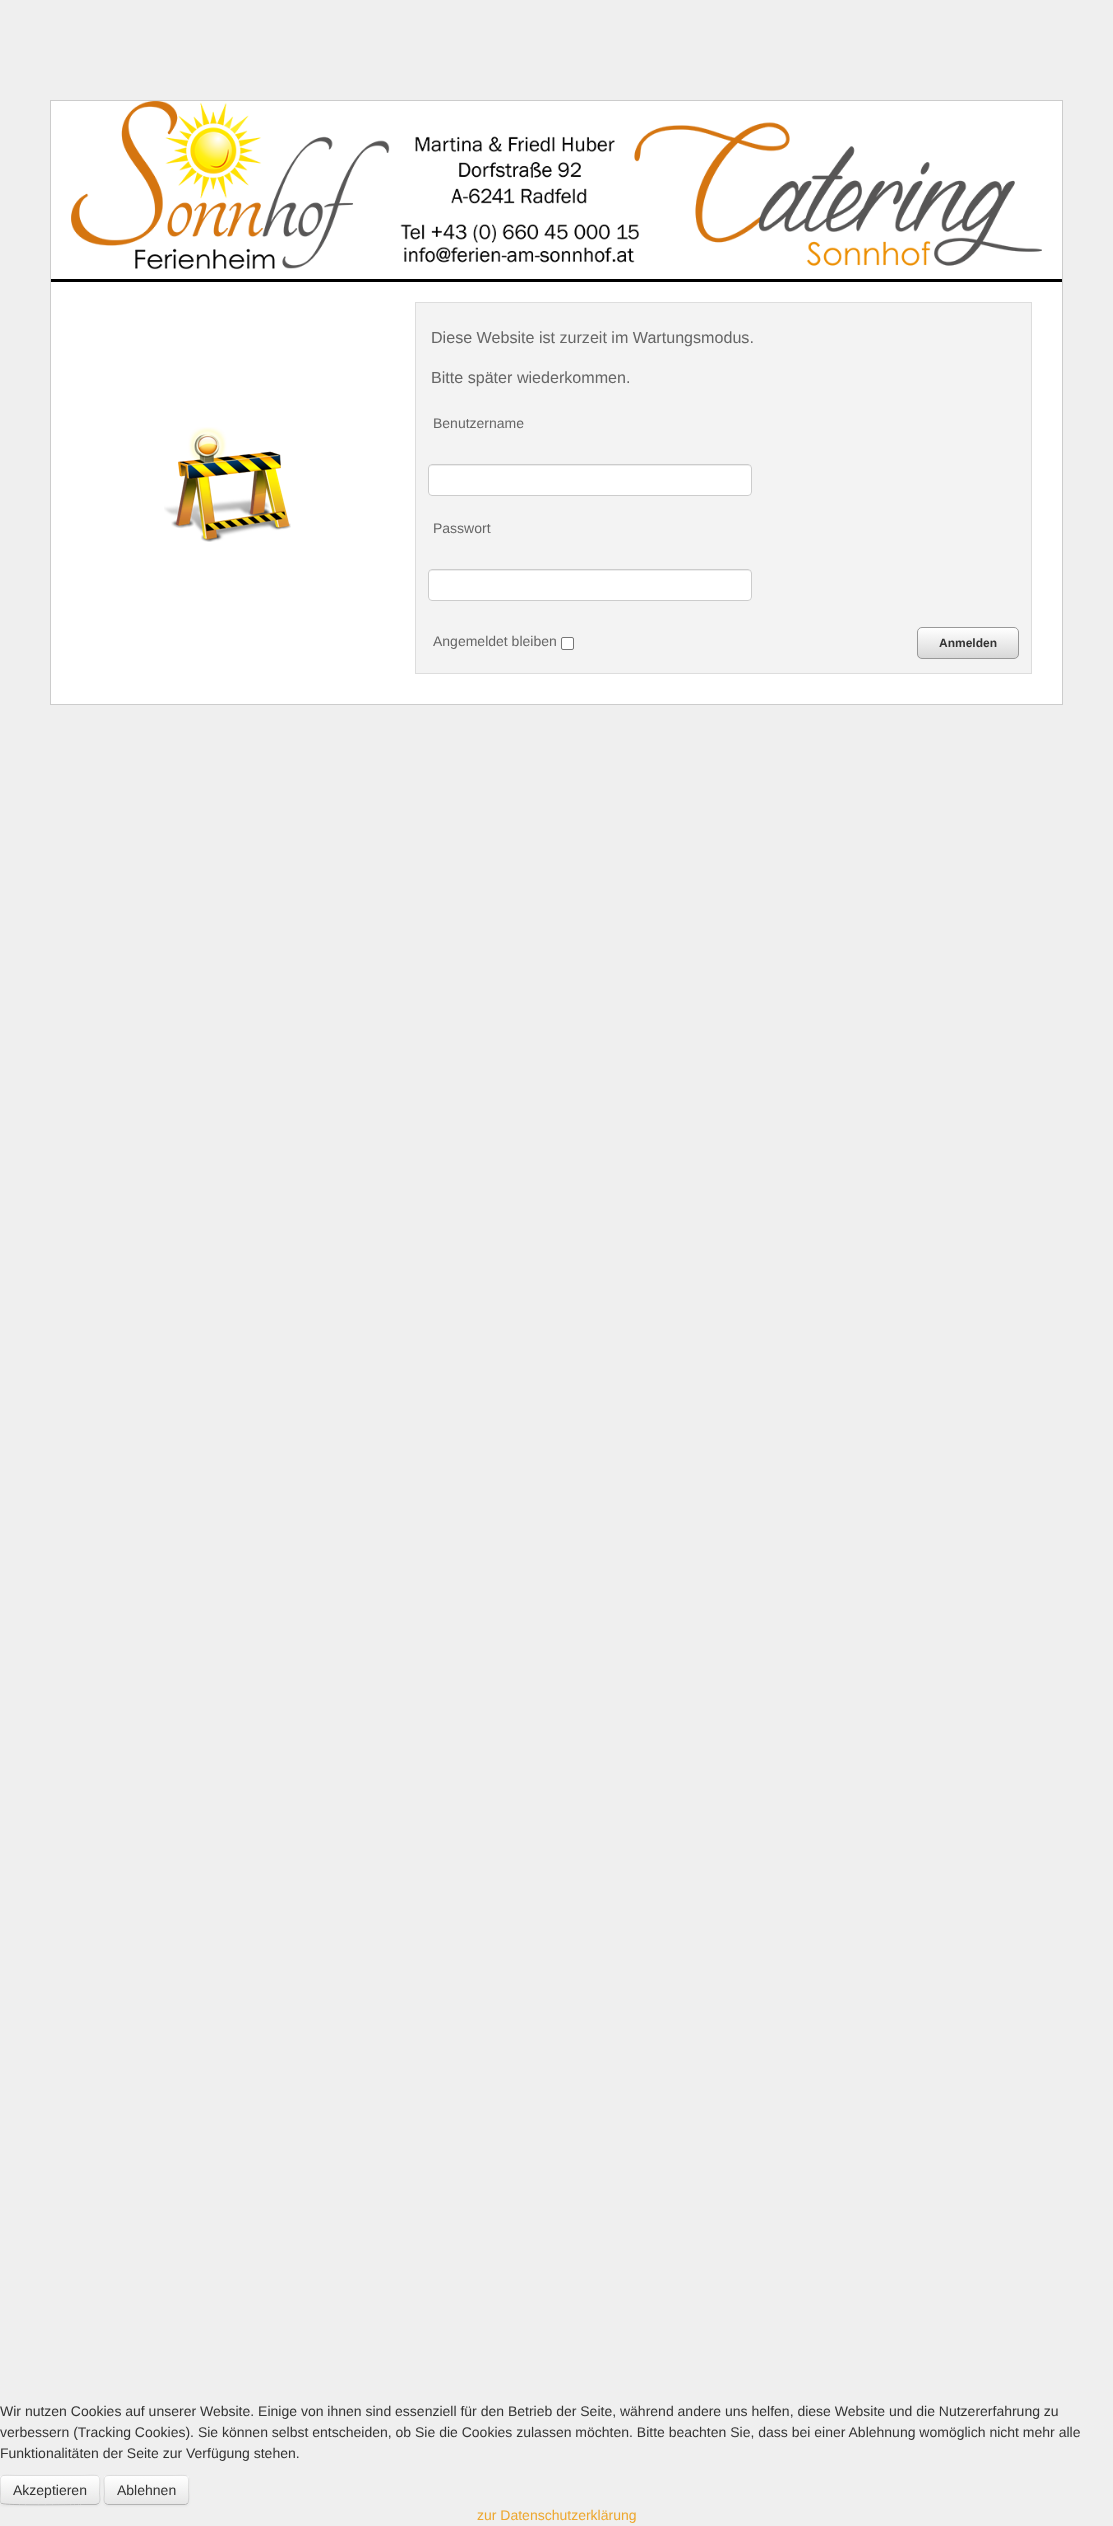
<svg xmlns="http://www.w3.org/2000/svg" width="1113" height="2526">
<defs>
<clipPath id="clip1"><rect x="917" y="627" width="102" height="32" rx="5"/></clipPath>
<linearGradient id="g1" gradientUnits="userSpaceOnUse" x1="968" y1="628" x2="968" y2="658"><stop offset="0" stop-color="#fff"/><stop offset="1" stop-color="#d8d8d8"/></linearGradient>
<clipPath id="clip2"><rect y="2475" width="100" height="30" rx="4"/></clipPath>
<linearGradient id="g2" gradientUnits="userSpaceOnUse" x1="50" y1="2476" x2="50" y2="2504"><stop offset="0" stop-color="#fff"/><stop offset="1" stop-color="#e6e6e6"/></linearGradient>
<clipPath id="clip3"><rect x="104" y="2475" width="85" height="30" rx="4"/></clipPath>
<linearGradient id="g3" gradientUnits="userSpaceOnUse" x1="147" y1="2476" x2="147" y2="2504"><stop offset="0" stop-color="#fff"/><stop offset="1" stop-color="#e6e6e6"/></linearGradient>
</defs>
<rect width="100%" height="100%" fill="#efefef"/>
<rect x="50.5" y="100.5" width="1012" height="604" fill="#fff" stroke="#ccc"/>
<rect x="51" y="279" width="1011" height="3" fill="#000"/>
<image x="71" y="101" width="971" height="169" href="media/1.png"/>
<image x="164" y="427" width="127" height="115" href="media/2.png"/>
<rect x="415.5" y="302.5" width="616" height="371" fill="#f3f3f3" stroke="#ddd"/>
<text x="431" y="343" style="font-family:Liberation Sans;font-size:16.1px;fill:#666">Diese Website ist zurzeit im Wartungsmodus.</text>
<text x="431" y="383" style="font-family:Liberation Sans;font-size:16.1px;fill:#666">Bitte später wiederkommen.</text>
<text x="433" y="428" style="font-family:Liberation Sans;font-size:14px;fill:#666">Benutzername</text>
<rect x="428" y="464" width="324" height="32" rx="4" fill="#fff"/>
<path d="M432 466h316c2 0 3 1 3 3c0-2-1-4-3-4h-316c-2 0-3 2-3 4c0-2 1-3 3-3z" fill="#ececec"/>
<rect x="428.5" y="464.5" width="323" height="31" rx="3.5" fill="none" stroke="#ccc"/>
<text x="433" y="533" style="font-family:Liberation Sans;font-size:14px;fill:#666">Passwort</text>
<rect x="428" y="569" width="324" height="32" rx="4" fill="#fff"/>
<path d="M432 571h316c2 0 3 1 3 3c0-2-1-4-3-4h-316c-2 0-3 2-3 4c0-2 1-3 3-3z" fill="#ececec"/>
<rect x="428.5" y="569.5" width="323" height="31" rx="3.5" fill="none" stroke="#ccc"/>
<text x="433" y="646" style="font-family:Liberation Sans;font-size:14px;fill:#666">Angemeldet bleiben</text>
<rect x="561.5" y="637.5" width="12" height="12" rx="1.5" fill="#fff" stroke="#767676"/>
<g clip-path="url(#clip1)">
<rect x="917" y="628" width="102" height="30" fill="url(#g1)"/>
</g>
<rect x="917.5" y="627.5" width="101" height="31" rx="4.5" fill="none" stroke="#999"/>
<text x="939" y="647" style="font-family:Liberation Sans;font-size:12px;font-weight:bold;fill:#333">Anmelden</text>
<text x="0" y="2416" style="font-family:Liberation Sans;font-size:14px;fill:#333">Wir nutzen Cookies auf unserer Website. Einige von ihnen sind essenziell für den Betrieb der Seite, während andere uns helfen, diese Website und die Nutzererfahrung zu</text>
<text x="0" y="2437" style="font-family:Liberation Sans;font-size:14px;fill:#333">verbessern (Tracking Cookies). Sie können selbst entscheiden, ob Sie die Cookies zulassen möchten. Bitte beachten Sie, dass bei einer Ablehnung womöglich nicht mehr alle</text>
<text x="0" y="2458" style="font-family:Liberation Sans;font-size:14px;fill:#333">Funktionalitäten der Seite zur Verfügung stehen.</text>
<rect y="2476" width="100" height="30" rx="4" fill="#0000000d" filter="blur(1px)"/>
<rect y="2475" width="100" height="30" rx="4" fill="#f5f5f5"/>
<g clip-path="url(#clip2)">
<rect y="2476" width="100" height="28" fill="url(#g2)"/>
</g>
<path d="M98.5 2503.5l-2.5 1h-15.5c-8.5 0-76.5 1-78.5-1h-.5" fill="none" stroke="#b3b3b3"/>
<path d="M1.5 2503.5c-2.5-2.5-1-7-1-10c0-21.5-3.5-18 19-18h61c22.5 0 19-3.5 19 18c0 3 1.5 7.5-1 10" fill="none" stroke="#0000001a"/>
<text x="13" y="2495" style="font-family:Liberation Sans;font-size:14px;fill:#333">Akzeptieren</text>
<rect x="104" y="2476" width="85" height="30" rx="4" fill="#0000000d" filter="blur(1px)"/>
<rect x="104" y="2475" width="85" height="30" rx="4" fill="#f5f5f5"/>
<g clip-path="url(#clip3)">
<rect x="104" y="2476" width="85" height="28" fill="url(#g3)"/>
</g>
<path d="M187.5 2503.5l-2 1h-78l-2-1" fill="none" stroke="#b3b3b3"/>
<path d="M105.5 2503.5c-2.5-2.5-1-7-1-10c0-20-4-18 16.5-18h51c18.5 0 16.5-2.5 16.5 14.5c0 3 1 11.5-1 13.5" fill="none" stroke="#0000001a"/>
<text x="117" y="2495" style="font-family:Liberation Sans;font-size:14px;fill:#333">Ablehnen</text>
<text x="477" y="2520" style="font-family:Liberation Sans;font-size:14px;fill:#eda72e">zur Datenschutzerklärung</text>
</svg>
